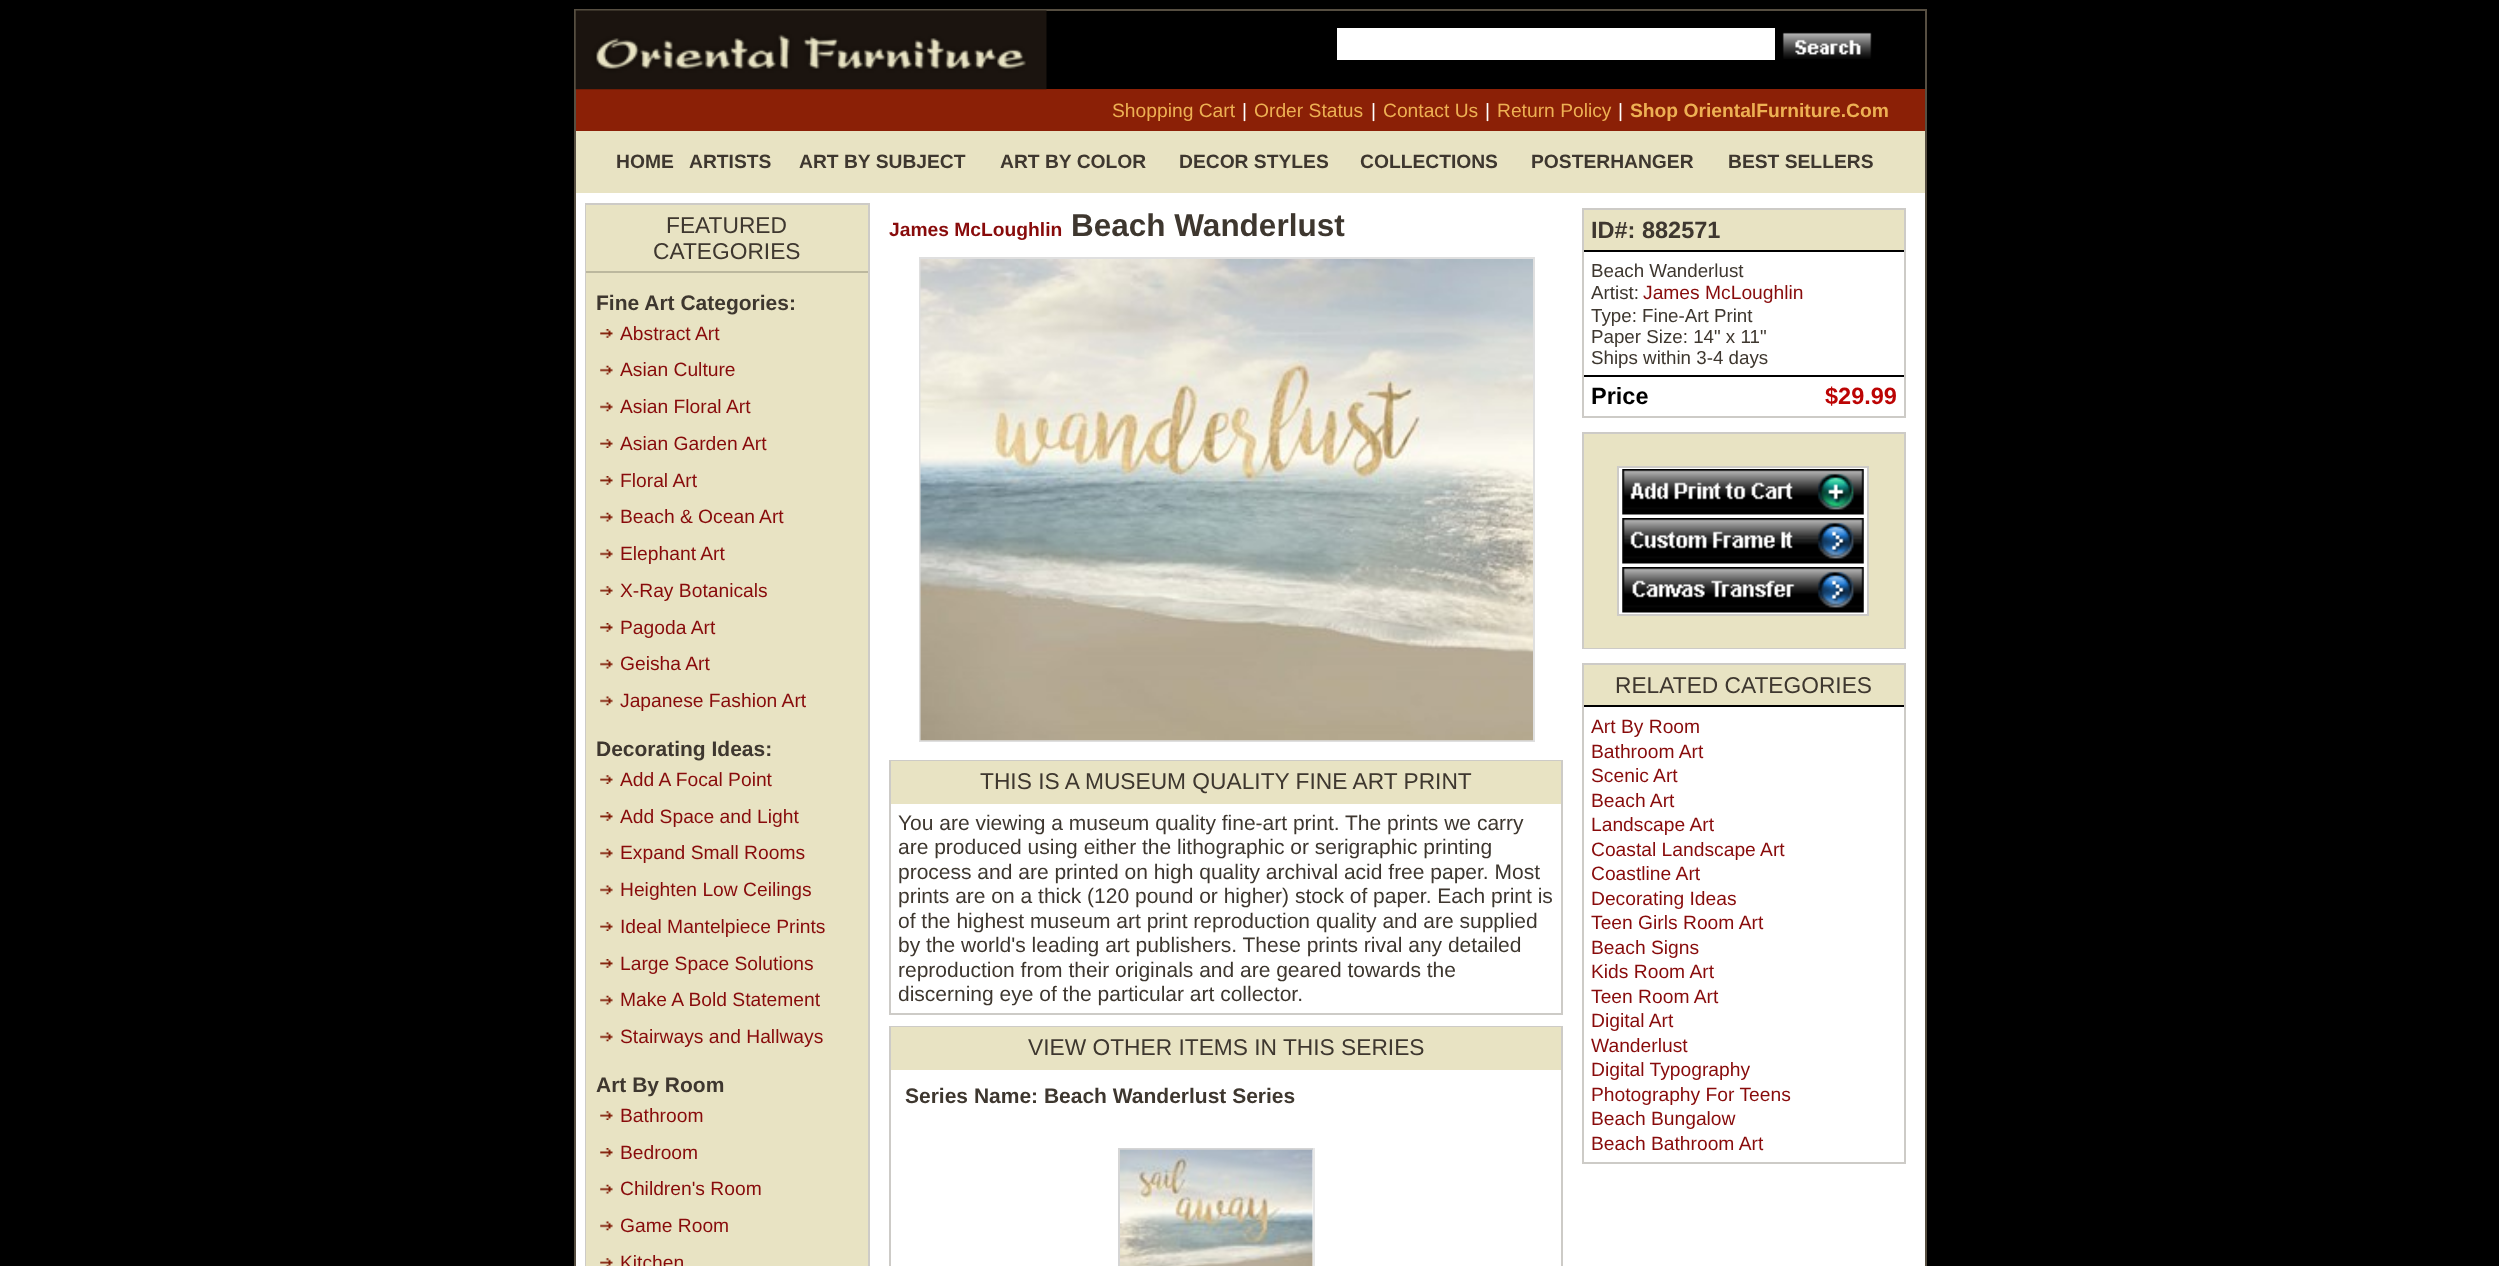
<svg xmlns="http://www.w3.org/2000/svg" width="2499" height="1266">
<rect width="100%" height="100%" fill="#000"/>
<rect x="576" y="193" width="1349" height="1073" fill="#fff"/>
<rect x="575" y="10" width="1351" height="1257" fill="none" stroke="#564e41" stroke-width="2"/>
<rect x="576" y="89" width="1349" height="42" fill="#8b2006"/>
<image x="575" y="10" width="472" height="80" href="media/1.png"/>
<rect x="1337" y="28" width="438" height="32" fill="#fff"/>
<image x="1782" y="32" width="90" height="27" href="media/2.png"/>
<text x="1112" y="117" style="font-family:Liberation Sans;font-size:19.25px;fill:#edb053">Shopping Cart</text>
<text x="1242" y="117" style="font-family:Liberation Sans;font-size:19.25px;fill:#fff">|</text>
<text x="1254" y="117" style="font-family:Liberation Sans;font-size:19.25px;fill:#edb053">Order Status</text>
<text x="1371" y="117" style="font-family:Liberation Sans;font-size:19.25px;fill:#fff">|</text>
<text x="1383" y="117" style="font-family:Liberation Sans;font-size:19.25px;fill:#edb053">Contact Us</text>
<text x="1485" y="117" style="font-family:Liberation Sans;font-size:19.25px;fill:#fff">|</text>
<text x="1497" y="117" style="font-family:Liberation Sans;font-size:19.25px;fill:#edb053">Return Policy</text>
<text x="1618" y="117" style="font-family:Liberation Sans;font-size:19.25px;fill:#fff">|</text>
<text x="1630" y="117" style="font-family:Liberation Sans;font-size:19.25px;font-weight:bold;fill:#edb053">Shop OrientalFurniture.Com</text>
<rect x="576" y="131" width="1349" height="62" fill="#e8e3c3"/>
<text x="616" y="168" style="font-family:Liberation Sans;font-size:19.25px;font-weight:bold;fill:#3e372f">HOME</text>
<text x="689" y="168" style="font-family:Liberation Sans;font-size:19.25px;font-weight:bold;fill:#3e372f">ARTISTS</text>
<text x="799" y="168" style="font-family:Liberation Sans;font-size:19.25px;font-weight:bold;fill:#3e372f">ART BY SUBJECT</text>
<text x="1000" y="168" style="font-family:Liberation Sans;font-size:19.25px;font-weight:bold;fill:#3e372f">ART BY COLOR</text>
<text x="1179" y="168" style="font-family:Liberation Sans;font-size:19.25px;font-weight:bold;fill:#3e372f">DECOR STYLES</text>
<text x="1360" y="168" style="font-family:Liberation Sans;font-size:19.25px;font-weight:bold;fill:#3e372f">COLLECTIONS</text>
<text x="1531" y="168" style="font-family:Liberation Sans;font-size:19.25px;font-weight:bold;fill:#3e372f">POSTERHANGER</text>
<text x="1728" y="168" style="font-family:Liberation Sans;font-size:19.25px;font-weight:bold;fill:#3e372f">BEST SELLERS</text>
<rect x="586" y="204" width="283" height="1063" fill="none" stroke="#cdcbc7" stroke-width="2"/>
<rect x="586" y="205" width="282" height="66" fill="#e8e3c3"/>
<text x="666" y="233" style="font-family:Liberation Sans;font-size:22.75px;fill:#3e372f">FEATURED</text>
<text x="653" y="259" style="font-family:Liberation Sans;font-size:22.75px;fill:#3e372f">CATEGORIES</text>
<rect x="586" y="273" width="282" height="993" fill="#e8e3c3"/>
<rect x="586" y="271" width="282" height="2" fill="#bcb89e"/>
<text x="596" y="310" style="font-family:Liberation Sans;font-size:21px;font-weight:bold;fill:#3e372f">Fine Art Categories:</text>
<image x="600" y="329" width="13" height="9" href="media/3.png"/>
<text x="620" y="340" style="font-family:Liberation Sans;font-size:19.25px;fill:#880b0b">Abstract Art</text>
<image x="600" y="365" width="13" height="10" href="media/4.png"/>
<text x="620" y="376" style="font-family:Liberation Sans;font-size:19.25px;fill:#880b0b">Asian Culture</text>
<image x="600" y="402" width="13" height="10" href="media/5.png"/>
<text x="620" y="413" style="font-family:Liberation Sans;font-size:19.25px;fill:#880b0b">Asian Floral Art</text>
<image x="600" y="439" width="13" height="9" href="media/6.png"/>
<text x="620" y="450" style="font-family:Liberation Sans;font-size:19.25px;fill:#880b0b">Asian Garden Art</text>
<image x="600" y="476" width="13" height="9" href="media/3.png"/>
<text x="620" y="487" style="font-family:Liberation Sans;font-size:19.25px;fill:#880b0b">Floral Art</text>
<image x="600" y="512" width="13" height="10" href="media/4.png"/>
<text x="620" y="523" style="font-family:Liberation Sans;font-size:19.25px;fill:#880b0b">Beach &amp; Ocean Art</text>
<image x="600" y="549" width="13" height="10" href="media/5.png"/>
<text x="620" y="560" style="font-family:Liberation Sans;font-size:19.25px;fill:#880b0b">Elephant Art</text>
<image x="600" y="586" width="13" height="9" href="media/6.png"/>
<text x="620" y="597" style="font-family:Liberation Sans;font-size:19.25px;fill:#880b0b">X-Ray Botanicals</text>
<image x="600" y="623" width="13" height="9" href="media/3.png"/>
<text x="620" y="634" style="font-family:Liberation Sans;font-size:19.25px;fill:#880b0b">Pagoda Art</text>
<image x="600" y="659" width="13" height="10" href="media/4.png"/>
<text x="620" y="670" style="font-family:Liberation Sans;font-size:19.25px;fill:#880b0b">Geisha Art</text>
<image x="600" y="696" width="13" height="10" href="media/5.png"/>
<text x="620" y="707" style="font-family:Liberation Sans;font-size:19.25px;fill:#880b0b">Japanese Fashion Art</text>
<text x="596" y="756" style="font-family:Liberation Sans;font-size:21px;font-weight:bold;fill:#3e372f">Decorating Ideas:</text>
<image x="600" y="775" width="13" height="9" href="media/6.png"/>
<text x="620" y="786" style="font-family:Liberation Sans;font-size:19.25px;fill:#880b0b">Add A Focal Point</text>
<image x="600" y="812" width="13" height="9" href="media/3.png"/>
<text x="620" y="823" style="font-family:Liberation Sans;font-size:19.25px;fill:#880b0b">Add Space and Light</text>
<image x="600" y="848" width="13" height="10" href="media/4.png"/>
<text x="620" y="859" style="font-family:Liberation Sans;font-size:19.25px;fill:#880b0b">Expand Small Rooms</text>
<image x="600" y="885" width="13" height="10" href="media/5.png"/>
<text x="620" y="896" style="font-family:Liberation Sans;font-size:19.25px;fill:#880b0b">Heighten Low Ceilings</text>
<image x="600" y="922" width="13" height="9" href="media/6.png"/>
<text x="620" y="933" style="font-family:Liberation Sans;font-size:19.25px;fill:#880b0b">Ideal Mantelpiece Prints</text>
<image x="600" y="959" width="13" height="9" href="media/3.png"/>
<text x="620" y="970" style="font-family:Liberation Sans;font-size:19.25px;fill:#880b0b">Large Space Solutions</text>
<image x="600" y="995" width="13" height="10" href="media/4.png"/>
<text x="620" y="1006" style="font-family:Liberation Sans;font-size:19.25px;fill:#880b0b">Make A Bold Statement</text>
<image x="600" y="1032" width="13" height="10" href="media/5.png"/>
<text x="620" y="1043" style="font-family:Liberation Sans;font-size:19.25px;fill:#880b0b">Stairways and Hallways</text>
<text x="596" y="1092" style="font-family:Liberation Sans;font-size:21px;font-weight:bold;fill:#3e372f">Art By Room</text>
<image x="600" y="1111" width="13" height="9" href="media/6.png"/>
<text x="620" y="1122" style="font-family:Liberation Sans;font-size:19.25px;fill:#880b0b">Bathroom</text>
<image x="600" y="1148" width="13" height="9" href="media/3.png"/>
<text x="620" y="1159" style="font-family:Liberation Sans;font-size:19.25px;fill:#880b0b">Bedroom</text>
<image x="600" y="1184" width="13" height="10" href="media/4.png"/>
<text x="620" y="1195" style="font-family:Liberation Sans;font-size:19.25px;fill:#880b0b">Children's Room</text>
<image x="600" y="1221" width="13" height="10" href="media/5.png"/>
<text x="620" y="1232" style="font-family:Liberation Sans;font-size:19.25px;fill:#880b0b">Game Room</text>
<image x="600" y="1258" width="13" height="8" href="media/7.png"/>
<text x="620" y="1269" style="font-family:Liberation Sans;font-size:19.25px;fill:#880b0b">Kitchen</text>
<text x="889" y="236" style="font-family:Liberation Sans;font-size:19.25px;font-weight:bold;fill:#880b0b">James McLoughlin</text>
<text x="1071" y="236" style="font-family:Liberation Sans;font-size:31.5px;font-weight:bold;fill:#3e372f">Beach Wanderlust</text>
<rect x="920" y="258" width="614" height="483" fill="none" stroke="#dfdfdf" stroke-width="2"/>
<image x="920" y="259" width="613" height="482" href="media/8.png"/>
<rect x="890" y="761" width="672" height="253" fill="none" stroke="#cdcbc7" stroke-width="2"/>
<rect x="891" y="761" width="670" height="43" fill="#e8e3c3"/>
<text x="980" y="789" style="font-family:Liberation Sans;font-size:22.75px;fill:#3e372f">THIS IS A MUSEUM QUALITY FINE ART PRINT</text>
<text x="898" y="830" style="font-family:Liberation Sans;font-size:21px;fill:#3e372f">You are viewing a museum quality fine-art print.</text>
<text x="1345" y="830" style="font-family:Liberation Sans;font-size:21px;fill:#3e372f">The prints we carry</text>
<text x="898" y="854" style="font-family:Liberation Sans;font-size:21px;fill:#3e372f">are produced using either the lithographic or serigraphic printing</text>
<text x="898" y="879" style="font-family:Liberation Sans;font-size:21px;fill:#3e372f">process and are printed on high quality archival acid free paper. Most</text>
<text x="898" y="903" style="font-family:Liberation Sans;font-size:21px;fill:#3e372f">prints are on a thick (120 pound or higher) stock of paper. Each print is</text>
<text x="898" y="928" style="font-family:Liberation Sans;font-size:21px;fill:#3e372f">of the highest museum art print reproduction quality and are supplied</text>
<text x="898" y="952" style="font-family:Liberation Sans;font-size:21px;fill:#3e372f">by the world's leading art publishers. These prints rival any detailed</text>
<text x="898" y="977" style="font-family:Liberation Sans;font-size:21px;fill:#3e372f">reproduction from their originals and are geared towards the</text>
<text x="898" y="1001" style="font-family:Liberation Sans;font-size:21px;fill:#3e372f">discerning eye of the particular art collector.</text>
<rect x="890" y="1027" width="672" height="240" fill="none" stroke="#cdcbc7" stroke-width="2"/>
<rect x="891" y="1027" width="670" height="43" fill="#e8e3c3"/>
<text x="1028" y="1055" style="font-family:Liberation Sans;font-size:22.75px;fill:#3e372f">VIEW OTHER ITEMS IN THIS SERIES</text>
<text x="905" y="1103" style="font-family:Liberation Sans;font-size:21px;font-weight:bold;fill:#3e372f">Series Name: Beach Wanderlust Series</text>
<rect x="1118" y="1148" width="196" height="2" fill="#d5d5d5"/>
<rect x="1118" y="1148" width="2" height="118" fill="#d5d5d5"/>
<image x="1120" y="1149" width="193" height="117" href="media/9.png"/>
<rect x="1313" y="1148" width="2" height="118" fill="#e7e7e7"/>
<rect x="1583" y="209" width="322" height="208" fill="none" stroke="#cdcbc7" stroke-width="2"/>
<rect x="1584" y="210" width="320" height="40" fill="#e8e3c3"/>
<text x="1591" y="238" style="font-family:Liberation Sans;font-size:23.5px;font-weight:bold;fill:#3e372f">ID#: 882571</text>
<rect x="1584" y="250" width="320" height="2" fill="#000"/>
<text x="1591" y="277" style="font-family:Liberation Sans;font-size:18.75px;fill:#3e372f">Beach Wanderlust</text>
<text x="1591" y="299" style="font-family:Liberation Sans;font-size:18.75px;fill:#3e372f">Artist:</text>
<text x="1643" y="299" style="font-family:Liberation Sans;font-size:19.25px;fill:#880b0b">James McLoughlin</text>
<text x="1591" y="322" style="font-family:Liberation Sans;font-size:18.75px;fill:#3e372f">Type: Fine-Art Print</text>
<text x="1591" y="343" style="font-family:Liberation Sans;font-size:18.75px;fill:#3e372f">Paper Size: 14" x 11"</text>
<text x="1591" y="364" style="font-family:Liberation Sans;font-size:18.75px;fill:#3e372f">Ships within 3-4 days</text>
<rect x="1584" y="375" width="320" height="2" fill="#000"/>
<text x="1591" y="404" style="font-family:Liberation Sans;font-size:23.5px;font-weight:bold;fill:#000">Price</text>
<text x="1825" y="404" style="font-family:Liberation Sans;font-size:23.5px;font-weight:bold;fill:#bc0404">$29.99</text>
<rect x="1583" y="433" width="322" height="215" fill="none" stroke="#cdcbc7" stroke-width="2"/>
<rect x="1584" y="434" width="320" height="214" fill="#e8e3c3"/>
<rect x="1618" y="467" width="250" height="148" fill="#fff" stroke="#cdcbc7" stroke-width="2"/>
<image x="1622" y="469" width="242" height="46" href="media/10.png"/>
<image x="1622" y="518" width="242" height="46" href="media/11.png"/>
<image x="1622" y="567" width="242" height="46" href="media/12.png"/>
<rect x="1583" y="664" width="322" height="499" fill="none" stroke="#cdcbc7" stroke-width="2"/>
<rect x="1584" y="665" width="320" height="40" fill="#e8e3c3"/>
<text x="1615" y="693" style="font-family:Liberation Sans;font-size:22.75px;fill:#3e372f">RELATED CATEGORIES</text>
<rect x="1584" y="705" width="320" height="2" fill="#000"/>
<text x="1591" y="733" style="font-family:Liberation Sans;font-size:19.25px;fill:#880b0b">Art By Room</text>
<text x="1591" y="758" style="font-family:Liberation Sans;font-size:19.25px;fill:#880b0b">Bathroom Art</text>
<text x="1591" y="782" style="font-family:Liberation Sans;font-size:19.25px;fill:#880b0b">Scenic Art</text>
<text x="1591" y="807" style="font-family:Liberation Sans;font-size:19.25px;fill:#880b0b">Beach Art</text>
<text x="1591" y="831" style="font-family:Liberation Sans;font-size:19.25px;fill:#880b0b">Landscape Art</text>
<text x="1591" y="856" style="font-family:Liberation Sans;font-size:19.25px;fill:#880b0b">Coastal Landscape Art</text>
<text x="1591" y="880" style="font-family:Liberation Sans;font-size:19.25px;fill:#880b0b">Coastline Art</text>
<text x="1591" y="905" style="font-family:Liberation Sans;font-size:19.25px;fill:#880b0b">Decorating Ideas</text>
<text x="1591" y="929" style="font-family:Liberation Sans;font-size:19.25px;fill:#880b0b">Teen Girls Room Art</text>
<text x="1591" y="954" style="font-family:Liberation Sans;font-size:19.25px;fill:#880b0b">Beach Signs</text>
<text x="1591" y="978" style="font-family:Liberation Sans;font-size:19.25px;fill:#880b0b">Kids Room Art</text>
<text x="1591" y="1003" style="font-family:Liberation Sans;font-size:19.25px;fill:#880b0b">Teen Room Art</text>
<text x="1591" y="1027" style="font-family:Liberation Sans;font-size:19.25px;fill:#880b0b">Digital Art</text>
<text x="1591" y="1052" style="font-family:Liberation Sans;font-size:19.25px;fill:#880b0b">Wanderlust</text>
<text x="1591" y="1076" style="font-family:Liberation Sans;font-size:19.25px;fill:#880b0b">Digital Typography</text>
<text x="1591" y="1101" style="font-family:Liberation Sans;font-size:19.25px;fill:#880b0b">Photography For Teens</text>
<text x="1591" y="1125" style="font-family:Liberation Sans;font-size:19.25px;fill:#880b0b">Beach Bungalow</text>
<text x="1591" y="1150" style="font-family:Liberation Sans;font-size:19.25px;fill:#880b0b">Beach Bathroom Art</text>
</svg>
